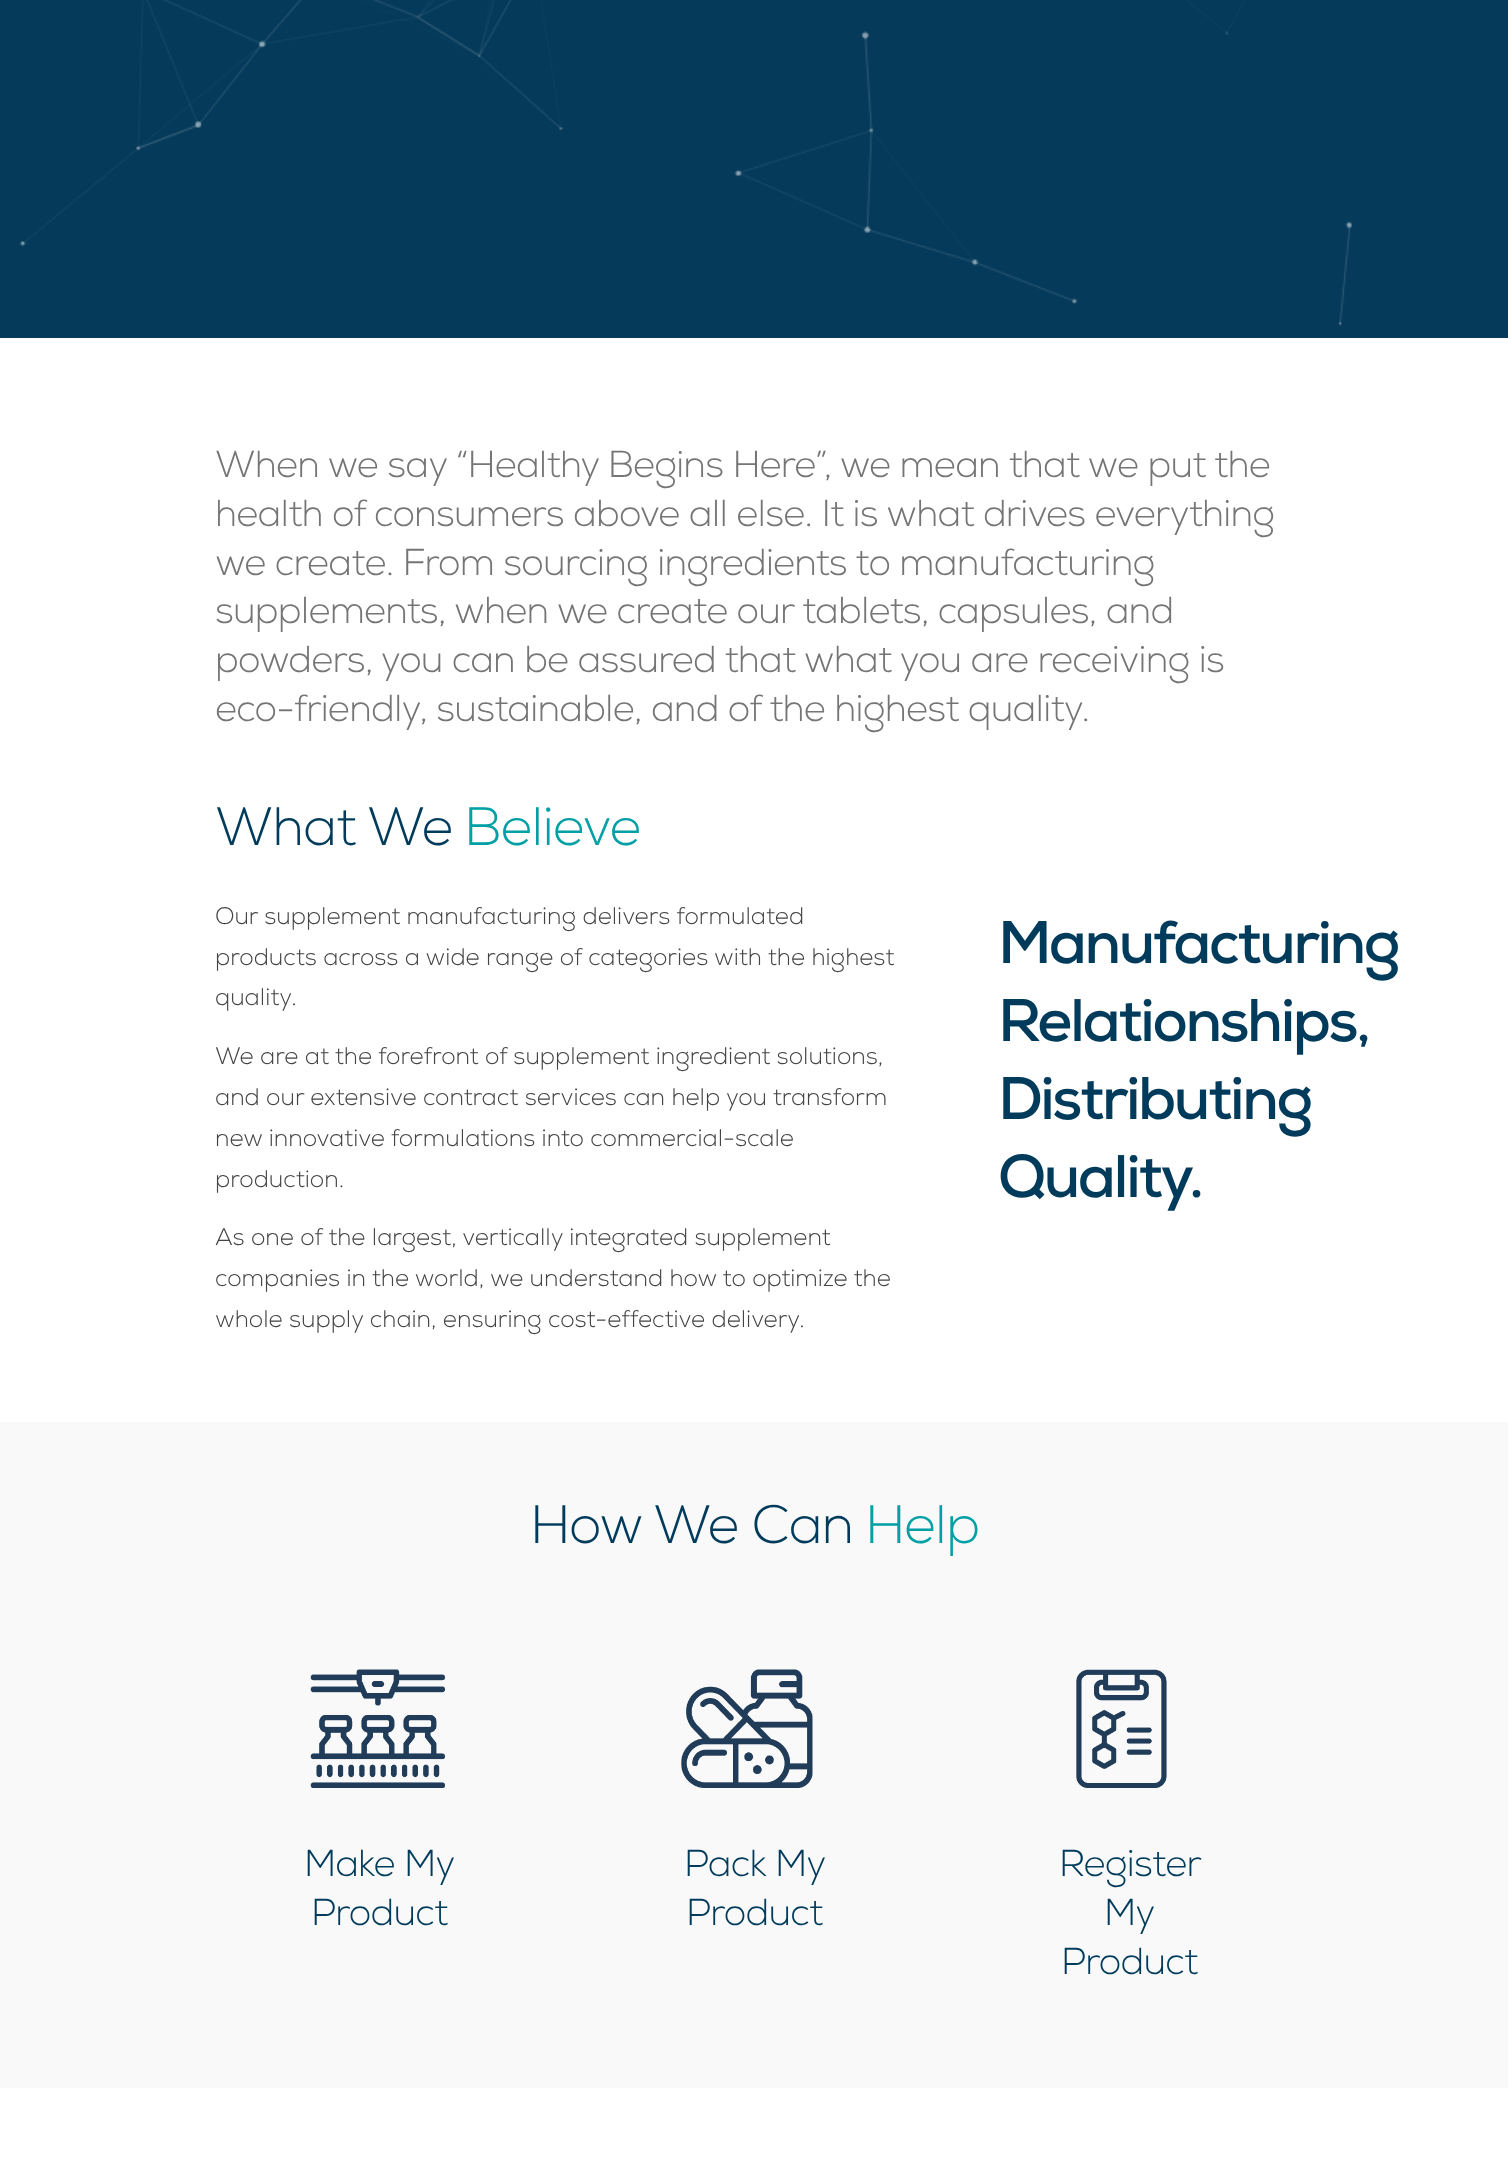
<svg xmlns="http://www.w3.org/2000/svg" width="1508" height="2170">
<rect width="100%" height="100%" fill="#fff"/>
<rect width="1508" height="338" fill="#053a5a"/>
<image x="19" y="0" width="1334" height="326" href="media/1.png"/>
<text x="215" y="477" style="font-family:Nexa;font-size:37.5px;font-weight:300;letter-spacing:-0.75px;fill:#757575">When we say “Healthy Begins Here”, we mean that we put the</text>
<text x="215" y="526" style="font-family:Nexa;font-size:37.5px;font-weight:300;letter-spacing:-0.75px;fill:#757575">health of consumers above all else. It is what drives everything</text>
<text x="215" y="575" style="font-family:Nexa;font-size:37.5px;font-weight:300;letter-spacing:-0.75px;fill:#757575">we create. From sourcing ingredients to manufacturing</text>
<text x="215" y="623" style="font-family:Nexa;font-size:37.5px;font-weight:300;letter-spacing:-0.75px;fill:#757575">supplements, when we create our tablets, capsules, and</text>
<text x="215" y="672" style="font-family:Nexa;font-size:37.5px;font-weight:300;letter-spacing:-0.75px;fill:#757575">powders, you can be assured that what you are receiving is</text>
<text x="215" y="721" style="font-family:Nexa;font-size:37.5px;font-weight:300;letter-spacing:-0.75px;fill:#757575">eco-friendly, sustainable, and of the highest quality.</text>
<text x="215" y="845" style="font-family:Nexa;font-size:54px;font-weight:300;letter-spacing:-1px;fill:#003b5c">What We</text>
<text x="464" y="845" style="font-family:Nexa;font-size:54px;font-weight:300;letter-spacing:-1px;fill:#00a0a5">Believe</text>
<text x="215" y="924" style="font-family:Nexa;font-size:24px;font-weight:300;fill:#444">Our supplement manufacturing delivers formulated</text>
<text x="215" y="965" style="font-family:Nexa;font-size:24px;font-weight:300;fill:#444">products across a wide range of categories with the highest</text>
<text x="215" y="1005" style="font-family:Nexa;font-size:24px;font-weight:300;fill:#444">quality.</text>
<text x="215" y="1064" style="font-family:Nexa;font-size:24px;font-weight:300;fill:#444">We are at the forefront of supplement ingredient solutions,</text>
<text x="215" y="1105" style="font-family:Nexa;font-size:24px;font-weight:300;fill:#444">and our extensive contract services can help you transform</text>
<text x="215" y="1146" style="font-family:Nexa;font-size:24px;font-weight:300;fill:#444">new innovative formulations into commercial-scale</text>
<text x="215" y="1187" style="font-family:Nexa;font-size:24px;font-weight:300;fill:#444">production.</text>
<text x="215" y="1245" style="font-family:Nexa;font-size:24px;font-weight:300;fill:#444">As one of the largest, vertically integrated supplement</text>
<text x="215" y="1286" style="font-family:Nexa;font-size:24px;font-weight:300;fill:#444">companies in the world, we understand how to optimize the</text>
<text x="215" y="1327" style="font-family:Nexa;font-size:24px;font-weight:300;fill:#444">whole supply chain, ensuring cost-effective delivery.</text>
<text x="998" y="963" style="font-family:Nexa;font-size:60px;font-weight:bold;letter-spacing:-2.4px;fill:#003b5c">Manufacturing</text>
<text x="998" y="1041" style="font-family:Nexa;font-size:60px;font-weight:bold;letter-spacing:-2.4px;fill:#003b5c">Relationships,</text>
<text x="998" y="1119" style="font-family:Nexa;font-size:60px;font-weight:bold;letter-spacing:-2.4px;fill:#003b5c">Distributing</text>
<text x="998" y="1197" style="font-family:Nexa;font-size:60px;font-weight:bold;letter-spacing:-2.4px;fill:#003b5c">Quality.</text>
<rect y="1422" width="1508" height="666" fill="#f9f9f9"/>
<text x="530" y="1543" style="font-family:Nexa;font-size:54px;font-weight:300;letter-spacing:-1px;fill:#003b5c">How We Can</text>
<text x="865" y="1543" style="font-family:Nexa;font-size:54px;font-weight:300;letter-spacing:-1px;fill:#00a0a5">Help</text>
<image x="310" y="1669" width="136" height="119" href="media/2.png"/>
<text x="304" y="1876" style="font-family:Nexa;font-size:37.5px;font-weight:300;letter-spacing:-0.75px;fill:#003b5c">Make My</text>
<text x="311" y="1925" style="font-family:Nexa;font-size:37.5px;font-weight:300;letter-spacing:-0.75px;fill:#003b5c">Product</text>
<image x="681" y="1669" width="132" height="119" href="media/3.png"/>
<text x="684" y="1876" style="font-family:Nexa;font-size:37.5px;font-weight:300;letter-spacing:-0.75px;fill:#003b5c">Pack My</text>
<text x="686" y="1925" style="font-family:Nexa;font-size:37.5px;font-weight:300;letter-spacing:-0.75px;fill:#003b5c">Product</text>
<image x="1076" y="1669" width="91" height="119" href="media/4.png"/>
<text x="1059" y="1876" style="font-family:Nexa;font-size:37.5px;font-weight:300;letter-spacing:-0.75px;fill:#003b5c">Register</text>
<text x="1104" y="1925" style="font-family:Nexa;font-size:37.5px;font-weight:300;letter-spacing:-0.75px;fill:#003b5c">My</text>
<text x="1061" y="1974" style="font-family:Nexa;font-size:37.5px;font-weight:300;letter-spacing:-0.75px;fill:#003b5c">Product</text>
</svg>
